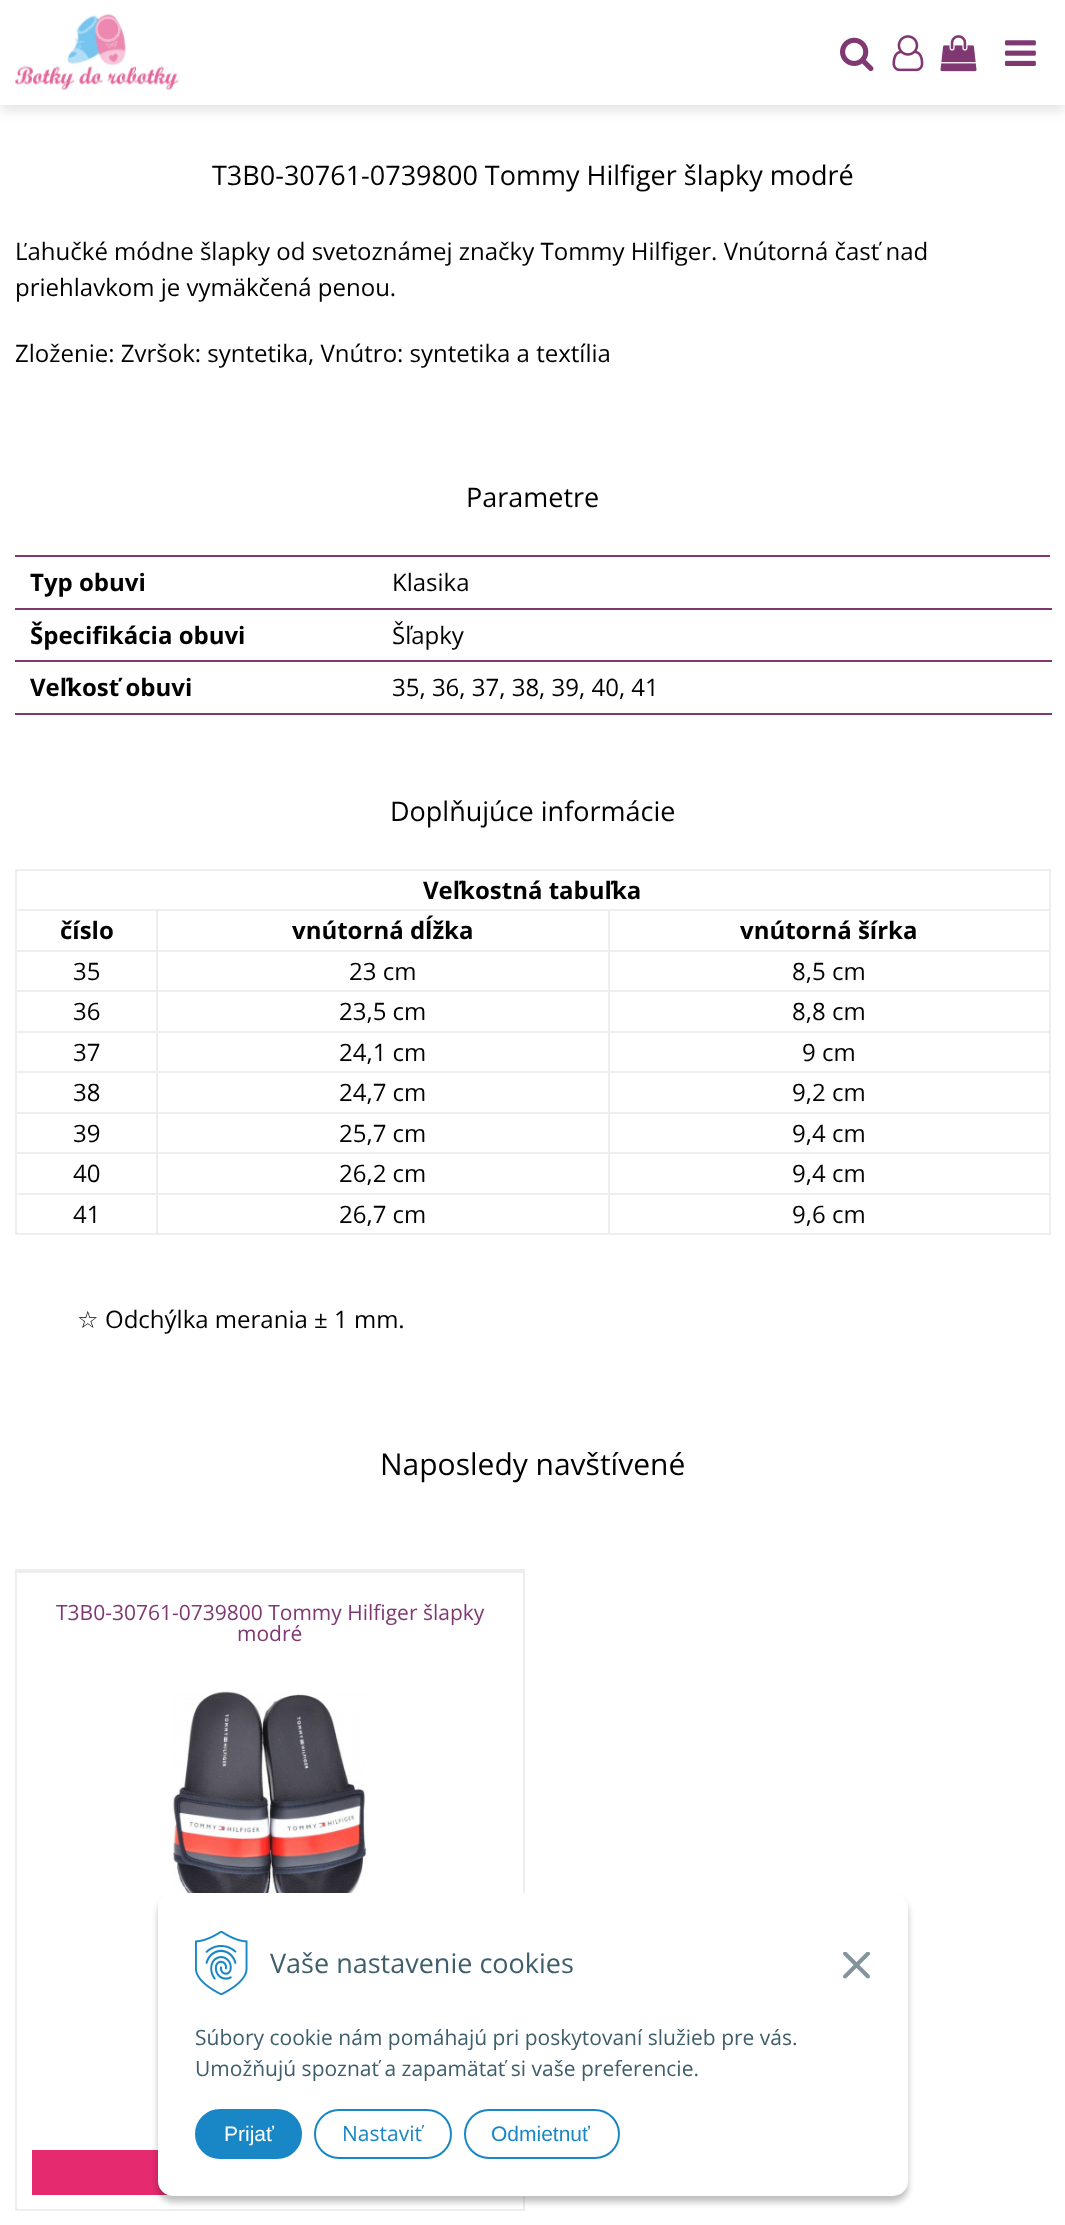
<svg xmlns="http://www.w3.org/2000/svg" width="1065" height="2225">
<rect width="100%" height="100%" fill="#fff"/>
<rect y="6" width="1065" height="105" fill="#0000001a" filter="blur(6px)"/>
<rect width="1065" height="105" fill="#fff"/>
<image x="15" y="14" width="164" height="76" href="media/1.png"/>
<image x="840" y="37" width="34" height="35" href="media/2.png"/>
<image x="892" y="35" width="32" height="37" href="media/3.png"/>
<image x="940" y="35" width="37" height="37" href="media/4.png"/>
<image x="1005" y="40" width="31" height="26" href="media/5.png"/>
<text x="212" y="185" style="font-family:Open Sans;font-size:27px;fill:#000">T3B0-30761-0739800 Tommy Hilfiger šlapky modré</text>
<text x="15" y="260" style="font-family:Open Sans;font-size:24px;fill:#000">Ľahučké módne šlapky od svetoznámej značky Tommy Hilfiger. Vnútorná časť nad</text>
<text x="15" y="296" style="font-family:Open Sans;font-size:24px;fill:#000">priehlavkom je vymäkčená penou.</text>
<text x="15" y="362" style="font-family:Open Sans;font-size:24px;fill:#000">Zloženie: Zvršok: syntetika, Vnútro: syntetika a textília</text>
<text x="466" y="507" style="font-family:Open Sans;font-size:27px;fill:#000">Parametre</text>
<rect x="15" y="555" width="1035" height="2" fill="#7f3872"/>
<text x="30" y="591" style="font-family:Open Sans;font-size:24px;font-weight:bold;fill:#000">Typ obuvi</text>
<rect x="15" y="608" width="1037" height="2" fill="#7f3872"/>
<text x="392" y="591" style="font-family:Open Sans;font-size:24px;fill:#000">Klasika</text>
<text x="30" y="644" style="font-family:Open Sans;font-size:24px;font-weight:bold;fill:#000">Špecifikácia obuvi</text>
<rect x="15" y="660" width="1037" height="2" fill="#7f3872"/>
<text x="392" y="644" style="font-family:Open Sans;font-size:24px;fill:#000">Šľapky</text>
<text x="30" y="696" style="font-family:Open Sans;font-size:24px;font-weight:bold;fill:#000">Veľkosť obuvi</text>
<rect x="15" y="713" width="1037" height="2" fill="#7f3872"/>
<text x="392" y="696" style="font-family:Open Sans;font-size:24px;fill:#000">35, 36, 37, 38, 39, 40, 41</text>
<text x="390" y="821" style="font-family:Open Sans;font-size:27px;fill:#000">Doplňujúce informácie</text>
<rect x="15" y="869" width="1035" height="2" fill="#eee"/>
<rect x="608" y="909" width="442" height="2" fill="#eee"/>
<rect x="608" y="950" width="442" height="2" fill="#eee"/>
<rect x="608" y="990" width="442" height="2" fill="#eee"/>
<rect x="608" y="1031" width="442" height="2" fill="#eee"/>
<rect x="608" y="1071" width="442" height="2" fill="#eee"/>
<rect x="608" y="1112" width="442" height="2" fill="#eee"/>
<rect x="608" y="1152" width="442" height="2" fill="#eee"/>
<rect x="608" y="1193" width="442" height="2" fill="#eee"/>
<rect x="1049" y="1193" width="2" height="42" fill="#eee"/>
<rect x="1049" y="1152" width="2" height="42" fill="#eee"/>
<rect x="1049" y="1112" width="2" height="42" fill="#eee"/>
<rect x="1049" y="1071" width="2" height="42" fill="#eee"/>
<rect x="1049" y="1031" width="2" height="42" fill="#eee"/>
<rect x="1049" y="990" width="2" height="42" fill="#eee"/>
<rect x="1049" y="950" width="2" height="42" fill="#eee"/>
<rect x="1049" y="909" width="2" height="42" fill="#eee"/>
<rect x="1049" y="869" width="2" height="42" fill="#eee"/>
<rect x="608" y="1233" width="442" height="2" fill="#eee"/>
<rect x="608" y="1193" width="2" height="42" fill="#eee"/>
<rect x="156" y="1193" width="453" height="2" fill="#eee"/>
<rect x="608" y="1152" width="2" height="42" fill="#eee"/>
<rect x="156" y="1152" width="453" height="2" fill="#eee"/>
<rect x="608" y="1112" width="2" height="42" fill="#eee"/>
<rect x="156" y="1112" width="453" height="2" fill="#eee"/>
<rect x="608" y="1071" width="2" height="42" fill="#eee"/>
<rect x="156" y="1071" width="453" height="2" fill="#eee"/>
<rect x="608" y="1031" width="2" height="42" fill="#eee"/>
<rect x="156" y="1031" width="453" height="2" fill="#eee"/>
<rect x="608" y="990" width="2" height="42" fill="#eee"/>
<rect x="156" y="990" width="453" height="2" fill="#eee"/>
<rect x="608" y="950" width="2" height="42" fill="#eee"/>
<rect x="156" y="950" width="453" height="2" fill="#eee"/>
<rect x="608" y="909" width="2" height="42" fill="#eee"/>
<rect x="156" y="909" width="453" height="2" fill="#eee"/>
<rect x="156" y="1233" width="453" height="2" fill="#eee"/>
<rect x="156" y="1193" width="2" height="42" fill="#eee"/>
<rect x="15" y="1193" width="143" height="2" fill="#eee"/>
<rect x="156" y="1152" width="2" height="42" fill="#eee"/>
<rect x="15" y="1152" width="143" height="2" fill="#eee"/>
<rect x="156" y="1112" width="2" height="42" fill="#eee"/>
<rect x="15" y="1112" width="143" height="2" fill="#eee"/>
<rect x="156" y="1071" width="2" height="42" fill="#eee"/>
<rect x="15" y="1071" width="143" height="2" fill="#eee"/>
<rect x="156" y="1031" width="2" height="42" fill="#eee"/>
<rect x="15" y="1031" width="143" height="2" fill="#eee"/>
<rect x="156" y="990" width="2" height="42" fill="#eee"/>
<rect x="15" y="990" width="143" height="2" fill="#eee"/>
<rect x="156" y="950" width="2" height="42" fill="#eee"/>
<rect x="15" y="950" width="143" height="2" fill="#eee"/>
<rect x="156" y="909" width="2" height="42" fill="#eee"/>
<rect x="15" y="909" width="143" height="2" fill="#eee"/>
<rect x="15" y="1233" width="143" height="2" fill="#eee"/>
<rect x="15" y="1193" width="2" height="42" fill="#eee"/>
<rect x="15" y="1152" width="2" height="42" fill="#eee"/>
<rect x="15" y="1112" width="2" height="42" fill="#eee"/>
<rect x="15" y="1071" width="2" height="42" fill="#eee"/>
<rect x="15" y="1031" width="2" height="42" fill="#eee"/>
<rect x="15" y="990" width="2" height="42" fill="#eee"/>
<rect x="15" y="950" width="2" height="42" fill="#eee"/>
<rect x="15" y="909" width="2" height="42" fill="#eee"/>
<rect x="15" y="869" width="2" height="42" fill="#eee"/>
<text x="423" y="899" style="font-family:Open Sans;font-size:24px;font-weight:bold;fill:#000">Veľkostná tabuľka</text>
<text x="60" y="939" style="font-family:Open Sans;font-size:24px;font-weight:bold;fill:#000">číslo</text>
<text x="292" y="939" style="font-family:Open Sans;font-size:24px;font-weight:bold;fill:#000">vnútorná dĺžka</text>
<text x="740" y="939" style="font-family:Open Sans;font-size:24px;font-weight:bold;fill:#000">vnútorná šírka</text>
<text x="73" y="980" style="font-family:Open Sans;font-size:24px;fill:#000">35</text>
<text x="349" y="980" style="font-family:Open Sans;font-size:24px;fill:#000">23 cm</text>
<text x="792" y="980" style="font-family:Open Sans;font-size:24px;fill:#000">8,5 cm</text>
<text x="73" y="1020" style="font-family:Open Sans;font-size:24px;fill:#000">36</text>
<text x="339" y="1020" style="font-family:Open Sans;font-size:24px;fill:#000">23,5 cm</text>
<text x="792" y="1020" style="font-family:Open Sans;font-size:24px;fill:#000">8,8 cm</text>
<text x="73" y="1061" style="font-family:Open Sans;font-size:24px;fill:#000">37</text>
<text x="339" y="1061" style="font-family:Open Sans;font-size:24px;fill:#000">24,1 cm</text>
<text x="802" y="1061" style="font-family:Open Sans;font-size:24px;fill:#000">9 cm</text>
<text x="73" y="1101" style="font-family:Open Sans;font-size:24px;fill:#000">38</text>
<text x="339" y="1101" style="font-family:Open Sans;font-size:24px;fill:#000">24,7 cm</text>
<text x="792" y="1101" style="font-family:Open Sans;font-size:24px;fill:#000">9,2 cm</text>
<text x="73" y="1142" style="font-family:Open Sans;font-size:24px;fill:#000">39</text>
<text x="339" y="1142" style="font-family:Open Sans;font-size:24px;fill:#000">25,7 cm</text>
<text x="792" y="1142" style="font-family:Open Sans;font-size:24px;fill:#000">9,4 cm</text>
<text x="73" y="1182" style="font-family:Open Sans;font-size:24px;fill:#000">40</text>
<text x="339" y="1182" style="font-family:Open Sans;font-size:24px;fill:#000">26,2 cm</text>
<text x="792" y="1182" style="font-family:Open Sans;font-size:24px;fill:#000">9,4 cm</text>
<text x="73" y="1223" style="font-family:Open Sans;font-size:24px;fill:#000">41</text>
<text x="339" y="1223" style="font-family:Open Sans;font-size:24px;fill:#000">26,7 cm</text>
<text x="792" y="1223" style="font-family:Open Sans;font-size:24px;fill:#000">9,6 cm</text>
<text x="77" y="1328" style="font-family:DejaVu Sans;font-size:24px;fill:#000">☆</text>
<text x="105" y="1328" style="font-family:Open Sans;font-size:24px;fill:#000">Odchýlka merania ± 1 mm.</text>
<text x="380" y="1475" style="font-family:Open Sans;font-size:30px;fill:#000">Naposledy navštívené</text>
<rect x="15" y="1569" width="510" height="2" fill="#eee"/>
<rect x="16" y="1572" width="508" height="638" fill="none" stroke="#eee" stroke-width="2"/>
<text x="56" y="1620" style="font-family:Open Sans;font-size:21px;fill:#7f3872">T3B0-30761-0739800 Tommy Hilfiger šlapky</text>
<text x="237" y="1641" style="font-family:Open Sans;font-size:21px;fill:#7f3872">modré</text>
<image x="172" y="1691" width="195" height="203" href="media/6.png"/>
<rect x="32" y="2150" width="136" height="45" fill="#e52a70"/>
<rect x="158" y="1899" width="750" height="303" rx="15" fill="#00000040" filter="blur(3px)"/>
<rect x="158" y="1893" width="750" height="303" rx="15" fill="#fff"/>
<image x="195" y="1931" width="53" height="64" href="media/7.png"/>
<text x="270" y="1973" style="font-family:Open Sans;font-size:27px;fill:#3f5e6c">Vaše nastavenie cookies</text>
<image x="843" y="1952" width="27" height="27" href="media/8.png"/>
<text x="195" y="2045" style="font-family:Open Sans;font-size:21px;fill:#3f5e6c">Súbory cookie nám pomáhajú pri poskytovaní služieb pre vás.</text>
<text x="195" y="2076" style="font-family:Open Sans;font-size:21px;fill:#3f5e6c">Umožňujú spoznať a zapamätať si vaše preferencie.</text>
<rect x="196" y="2110" width="105" height="48" rx="24" fill="#1987c6" stroke="#1987c6" stroke-width="2"/>
<text x="224" y="2141" style="font-family:Liberation Sans;font-size:21px;fill:#fff">Prijať</text>
<rect x="315" y="2110" width="136" height="48" rx="24" fill="none" stroke="#1987c6" stroke-width="2"/>
<text x="342" y="2141" style="font-family:Open Sans;font-size:21px;fill:#1987c6">Nastaviť</text>
<rect x="465" y="2110" width="154" height="48" rx="24" fill="none" stroke="#1987c6" stroke-width="2"/>
<text x="491" y="2141" style="font-family:Liberation Sans;font-size:21px;fill:#1987c6">Odmietnuť</text>
</svg>
